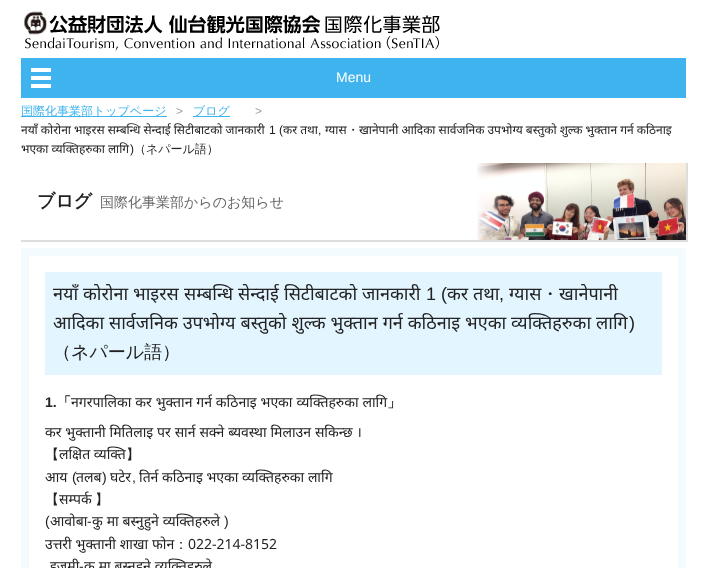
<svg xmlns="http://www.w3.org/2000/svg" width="707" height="568">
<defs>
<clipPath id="clip1"><path d="M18 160h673v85h-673zm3 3h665v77h-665z" clip-rule="evenodd"/></clipPath>
</defs>
<rect width="100%" height="100%" fill="#fff"/>
<image x="23" y="11" width="417" height="40" href="media/1.png"/>
<rect x="21" y="58" width="665" height="40" fill="#3eb3ed"/>
<rect x="31" y="68" width="20" height="20" fill="#fff"/>
<rect x="31" y="72" width="20" height="4" fill="#3eb3ed"/>
<text x="336" y="82" style="font-family:Liberation Sans;font-size:14px;fill:#fff">Menu</text>
<rect x="31" y="80" width="20" height="4" fill="#3eb3ed"/>
<rect x="21" y="116" width="146" height="1" fill="#3eb3ed"/>
<text x="21" y="115" style="font-family:WenQuanYi Zen Hei;font-size:12px;font-weight:500;fill:#3eb3ed">国際化事業部トップページ</text>
<text x="176" y="115" style="font-family:Liberation Sans;font-size:12px;fill:#959fa5">&gt;</text>
<rect x="193" y="116" width="37" height="1" fill="#3eb3ed"/>
<text x="193" y="115" style="font-family:WenQuanYi Zen Hei;font-size:12px;font-weight:500;fill:#3eb3ed">ブログ</text>
<text x="255" y="115" style="font-family:Liberation Sans;font-size:12px;fill:#959fa5">&gt;</text>
<text x="21" y="134" style="font-family:Noto Sans;font-size:12px;fill:#222">नयाँ कोरोना भाइरस सम्बन्धि सेन्दाई सिटीबाटको जानकारी</text>
<text x="269" y="134" style="font-family:Liberation Sans;font-size:12px;fill:#222">1 (</text>
<text x="283" y="134" style="font-family:Noto Sans;font-size:12px;fill:#222">कर तथा</text>
<text x="325" y="134" style="font-family:Noto Sans;font-size:12px;fill:#222">ग्यास</text>
<text x="347" y="134" style="font-family:WenQuanYi Zen Hei;font-size:12px;font-weight:500;fill:#222">・</text>
<text x="359" y="134" style="font-family:Noto Sans;font-size:12px;fill:#222">खानेपानी आदिका सार्वजनिक उपभोग्य बस्तुको शुल्क भुक्तान गर्न कठिनाइ</text>
<text x="318" y="134" style="font-family:Liberation Sans;font-size:12px;fill:#222">,</text>
<text x="21" y="153" style="font-family:Noto Sans;font-size:12px;fill:#222">भएका व्यक्तिहरुका लागि</text>
<text x="130" y="153" style="font-family:Liberation Sans;font-size:12px;fill:#222">)</text>
<text x="134" y="153" style="font-family:WenQuanYi Zen Hei;font-size:12px;font-weight:500;fill:#222">（ネパール語）</text>
<g clip-path="url(#clip1)">
<rect x="21" y="163" width="667" height="79" fill="#ddd" filter="blur(0.5px)"/>
</g>
<image x="477" y="163" width="209" height="77" href="media/2.png"/>
<text x="37" y="207" style="font-family:WenQuanYi Zen Hei;font-size:18px;font-weight:bold;fill:#222">ブログ</text>
<text x="100" y="207" style="font-family:WenQuanYi Zen Hei;font-size:14px;font-weight:500;fill:#666">国際化事業部からのお知らせ</text>
<rect x="25" y="252" width="657" height="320" fill="none" stroke="#f4fbff" stroke-width="8"/>
<rect x="45" y="272" width="617" height="103" fill="#e3f5ff"/>
<text x="53" y="300" style="font-family:Noto Sans;font-size:18px;fill:#222">नयाँ</text>
<text x="83" y="300" style="font-family:Noto Sans;font-size:18px;fill:#222">कोरोना</text>
<text x="133" y="300" style="font-family:Noto Sans;font-size:18px;fill:#222">भाइरस</text>
<text x="184" y="300" style="font-family:Noto Sans;font-size:18px;fill:#222">सम्बन्धि</text>
<text x="238" y="300" style="font-family:Noto Sans;font-size:18px;fill:#222">सेन्दाई</text>
<text x="284" y="300" style="font-family:Noto Sans;font-size:18px;fill:#222">सिटीबाटको</text>
<text x="362" y="300" style="font-family:Noto Sans;font-size:18px;fill:#222">जानकारी</text>
<text x="426" y="300" style="font-family:Liberation Sans;font-size:18px;fill:#222">1 (</text>
<text x="447" y="300" style="font-family:Noto Sans;font-size:18px;fill:#222">कर</text>
<text x="473" y="300" style="font-family:Noto Sans;font-size:18px;fill:#222">तथा</text>
<text x="509" y="300" style="font-family:Noto Sans;font-size:18px;fill:#222">ग्यास</text>
<text x="541" y="300" style="font-family:WenQuanYi Zen Hei;font-size:18px;font-weight:500;fill:#222">・</text>
<text x="559" y="300" style="font-family:Noto Sans;font-size:18px;fill:#222">खानेपानी</text>
<text x="499" y="300" style="font-family:Liberation Sans;font-size:18px;fill:#222">,</text>
<text x="53" y="329" word-spacing="0.25" style="font-family:Noto Sans;font-size:18px;fill:#222">आदिका सार्वजनिक उपभोग्य बस्तुको शुल्क भुक्तान गर्न कठिनाइ भएका व्यक्तिहरुका लागि</text>
<text x="629" y="329" style="font-family:Liberation Sans;font-size:18px;fill:#222">)</text>
<text x="53" y="358" style="font-family:WenQuanYi Zen Hei;font-size:18px;font-weight:500;fill:#222">（ネパール語）</text>
<text x="45" y="407" style="font-family:Liberation Sans;font-size:14px;font-weight:bold;fill:#222">1.</text>
<text x="57" y="407" style="font-family:WenQuanYi Zen Hei;font-size:14px;font-weight:bold;fill:#222">「</text>
<text x="71" y="407" word-spacing="0.25" style="font-family:Noto Sans;font-size:14px;fill:#222">नगरपालिका कर भुक्तान गर्न कठिनाइ भएका व्यक्तिहरुका लागि</text>
<text x="387" y="407" style="font-family:WenQuanYi Zen Hei;font-size:14px;font-weight:bold;fill:#222">」</text>
<text x="45" y="437" word-spacing="0.25" style="font-family:Noto Sans;font-size:14px;fill:#222">कर भुक्तानी मितिलाइ पर सार्न सक्ने ब्यवस्था मिलाउन सकिन्छ ।</text>
<text x="45" y="459" style="font-family:WenQuanYi Zen Hei;font-size:14px;font-weight:500;fill:#222">【</text>
<text x="59" y="459" style="font-family:Noto Sans;font-size:14px;fill:#222">लक्षित व्यक्ति</text>
<text x="126" y="459" style="font-family:WenQuanYi Zen Hei;font-size:14px;font-weight:500;fill:#222">】</text>
<text x="45" y="482" style="font-family:Noto Sans;font-size:14px;fill:#222">आय</text>
<text x="72" y="482" style="font-family:Liberation Sans;font-size:14px;fill:#222">(</text>
<text x="76" y="482" style="font-family:Noto Sans;font-size:14px;fill:#222">तलब</text>
<text x="102" y="482" style="font-family:Liberation Sans;font-size:14px;fill:#222">)</text>
<text x="110" y="482" style="font-family:Noto Sans;font-size:14px;fill:#222">घटेर</text>
<text x="132" y="482" style="font-family:Liberation Sans;font-size:14px;fill:#222">,</text>
<text x="139" y="482" style="font-family:Noto Sans;font-size:14px;fill:#222">तिर्न कठिनाइ भएका व्यक्तिहरुका लागि</text>
<text x="45" y="504" style="font-family:WenQuanYi Zen Hei;font-size:14px;font-weight:500;fill:#222">【</text>
<text x="59" y="504" style="font-family:Noto Sans;font-size:14px;fill:#222">सम्पर्क</text>
<text x="95" y="504" style="font-family:WenQuanYi Zen Hei;font-size:14px;font-weight:500;fill:#222">】</text>
<text x="45" y="526" style="font-family:Liberation Sans;font-size:14px;fill:#222">(</text>
<text x="50" y="526" style="font-family:Noto Sans;font-size:14px;fill:#222">आवोबा</text>
<text x="87" y="526" style="font-family:Liberation Sans;font-size:14px;fill:#222">-</text>
<text x="92" y="526" word-spacing="0.25" style="font-family:Noto Sans;font-size:14px;fill:#222">कु मा बस्नुहुने व्यक्तिहरुले</text>
<text x="224" y="526" style="font-family:Liberation Sans;font-size:14px;fill:#222">)</text>
<text x="45" y="549" word-spacing="0.25" style="font-family:Noto Sans;font-size:14px;fill:#222">उत्तरी भुक्तानी शाखा</text>
<text x="152" y="549" style="font-family:Noto Sans;font-size:14px;fill:#222">फोन</text>
<text x="174" y="549" style="font-family:WenQuanYi Zen Hei;font-size:14px;font-weight:500;fill:#222">：</text>
<text x="188" y="549" style="font-family:Noto Sans;font-size:14px;fill:#222">022-214-8152</text>
<text x="50" y="571" style="font-family:Noto Sans;font-size:14px;fill:#222">इजुमी</text>
<text x="79" y="571" style="font-family:Liberation Sans;font-size:14px;fill:#222">-</text>
<text x="84" y="571" word-spacing="0.25" style="font-family:Noto Sans;font-size:14px;fill:#222">कु मा बस्नुहुने व्यक्तिहरुले</text>
</svg>
